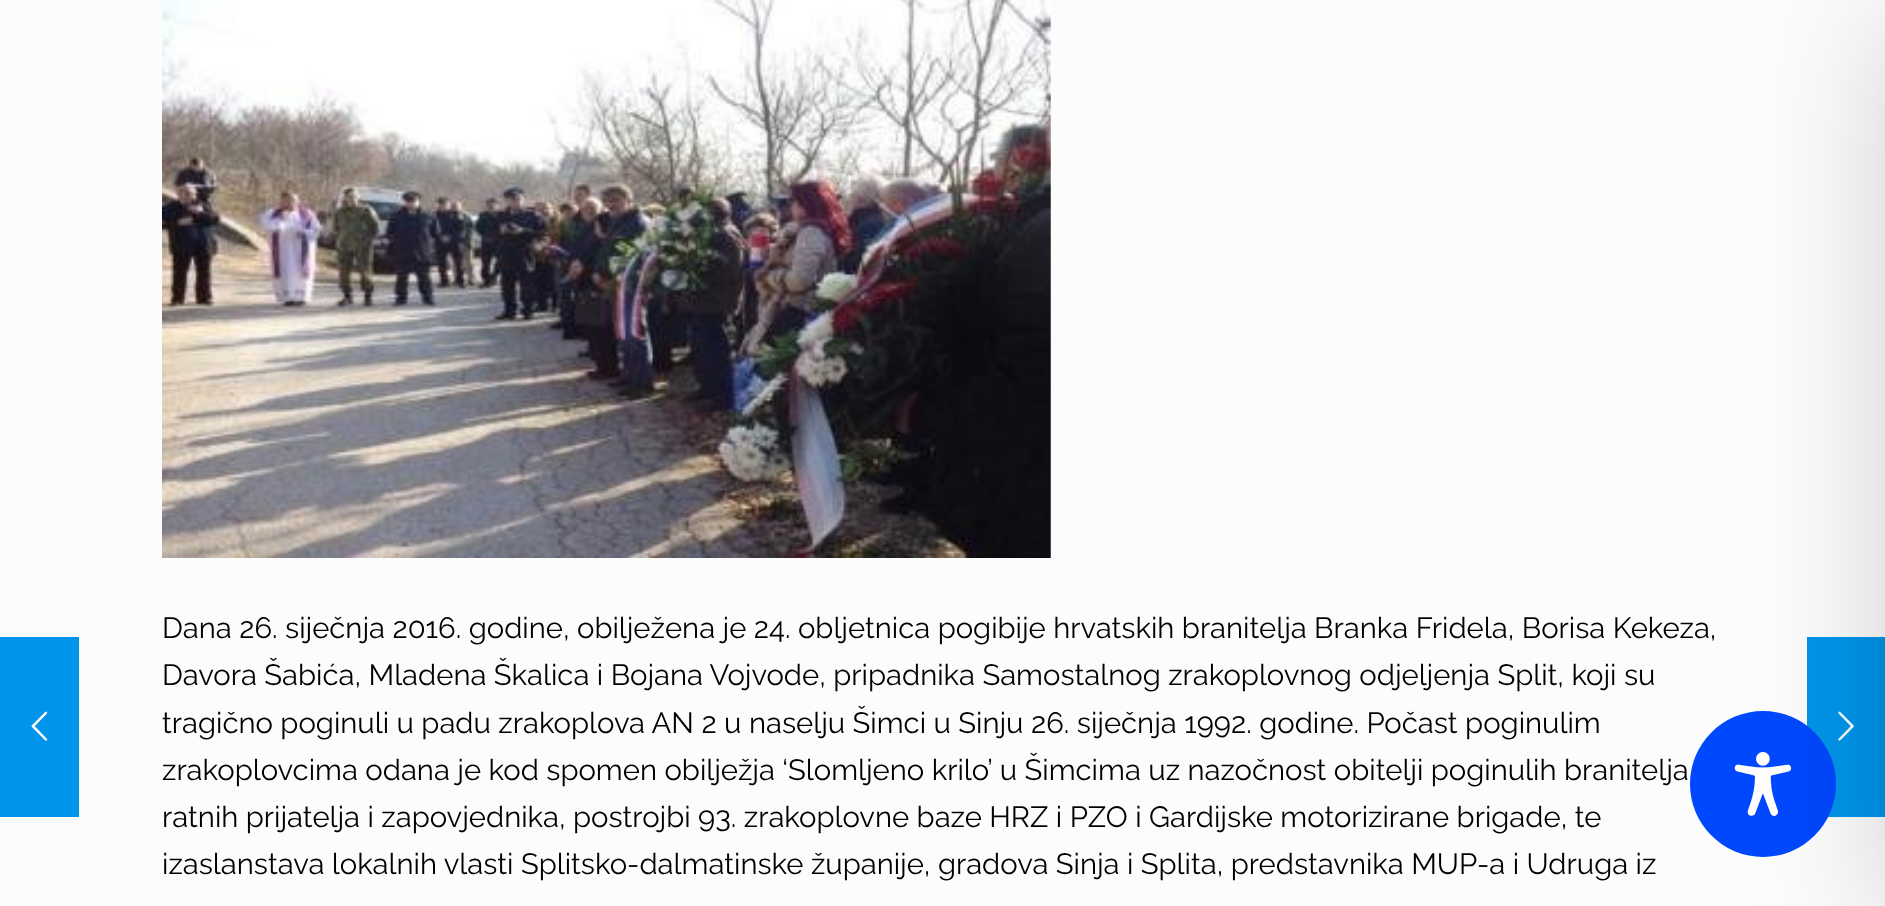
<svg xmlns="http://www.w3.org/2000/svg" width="1885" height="906">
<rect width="100%" height="100%" fill="#fcfcfc"/>
<rect y="637" width="79" height="180" fill="#0095eb"/>
<image x="31" y="711" width="17" height="30" href="media/1.png"/>
<image x="162" y="0" width="889" height="558" href="media/2.png"/>
<text x="162" y="638" style="font-family:Raleway;font-size:29.25px;fill:#000">Dana 26. siječnja 2016. godine, obilježena je 24. obljetnica pogibije hrvatskih branitelja Branka Fridela, Borisa Kekeza,</text>
<text x="162" y="685" style="font-family:Raleway;font-size:29.25px;fill:#000">Davora Šabića, Mladena Škalica i Bojana Vojvode, pripadnika Samostalnog zrakoplovnog odjeljenja Split, koji su</text>
<text x="162" y="733" style="font-family:Raleway;font-size:29.25px;fill:#000">tragično poginuli u padu zrakoplova AN 2 u naselju Šimci u Sinju 26. siječnja 1992. godine. Počast poginulim</text>
<text x="162" y="780" style="font-family:Raleway;font-size:29.25px;fill:#000">zrakoplovcima odana je kod spomen obilježja ‘Slomljeno krilo’ u Šimcima uz nazočnost obitelji poginulih branitelja</text>
<text x="162" y="827" style="font-family:Raleway;font-size:29.25px;fill:#000">ratnih prijatelja i zapovjednika, postrojbi 93. zrakoplovne baze HRZ i PZO i Gardijske motorizirane brigade, te</text>
<text x="162" y="874" style="font-family:Raleway;font-size:29.25px;fill:#000">izaslanstava lokalnih vlasti Splitsko-dalmatinske županije, gradova Sinja i Splita, predstavnika MUP-a i Udruga iz</text>
<rect x="1807" y="637" width="78" height="180" fill="#0095eb"/>
<circle cx="1763" cy="784" r="73" fill="#0048fe"/>
<image x="1734" y="752" width="58" height="64" href="media/3.png"/>
<image x="1838" y="711" width="16" height="30" href="media/4.png"/>
<rect x="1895" y="23" width="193" height="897" fill="#00000033" filter="blur(67.5px)"/>
</svg>
